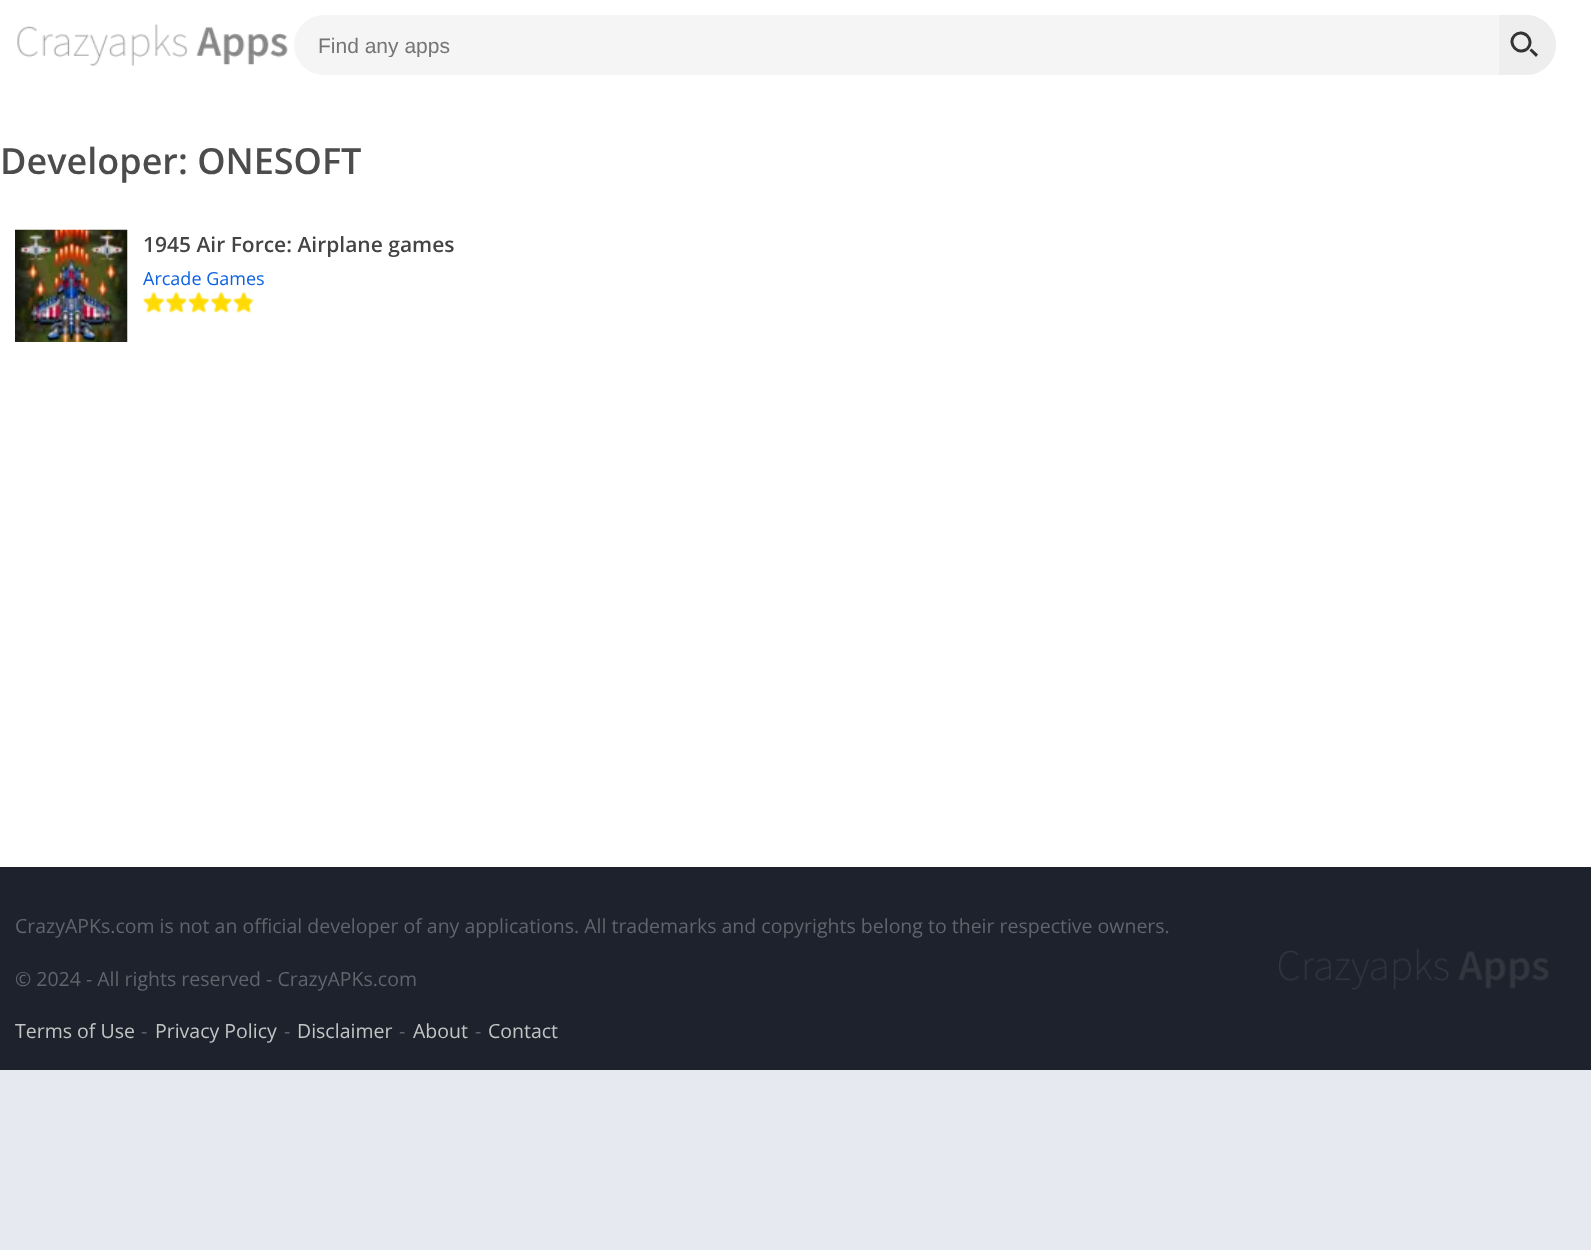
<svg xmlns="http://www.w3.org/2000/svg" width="1591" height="1250">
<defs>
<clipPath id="clip1"><rect x="318" y="33" width="1146" height="24"/></clipPath>
</defs>
<rect width="100%" height="100%" fill="#e6e9ef"/>
<rect width="1591" height="867" fill="#fff"/>
<image x="17" y="24" width="271" height="42" href="media/1.png"/>
<rect x="294" y="15" width="1262" height="60" rx="30" fill="#f5f5f5"/>
<g clip-path="url(#clip1)">
<text x="318" y="53" style="font-family:Liberation Sans;font-size:21px;fill:#757575">Find any apps</text>
</g>
<path d="M1499 15h27c16.5 0 30 13.5 30 30c0 16.5-13.5 30-30 30h-27z" fill="#eee"/>
<path d="M1514.5 35.5c8.5-8 21 4.5 13 13c-8.5 8-21-4.5-13-13z" fill="none" stroke="#333" stroke-width="3"/>
<path d="M1529.5 50.5l2-2l6.5 6l-2 2.5z" fill="#333"/>
<text x="0" y="174" style="font-family:Open Sans;font-size:36px;font-weight:600;fill:#4c4c4c">Developer: ONESOFT</text>
<image x="15" y="229" width="113" height="113" href="media/2.png"/>
<text x="143" y="252" style="font-family:Open Sans;font-size:21px;font-weight:600;fill:#444">1945 Air Force: Airplane games</text>
<text x="143" y="285" style="font-family:Open Sans;font-size:18px;fill:#0d62e2">Arcade Games</text>
<image x="143" y="292" width="111" height="21" href="media/3.png"/>
<image x="143" y="292" width="108" height="21" href="media/4.png"/>
<rect y="867" width="1591" height="203" fill="#1d222d"/>
<text x="15" y="933" style="font-family:Open Sans;font-size:19.5px;fill:#61646c">CrazyAPKs.com is not an official developer of any applications. All trademarks and copyrights belong to their respective owners.</text>
<text x="15" y="986" style="font-family:Open Sans;font-size:19.5px;fill:#61646c">© 2024 - All rights reserved - CrazyAPKs.com</text>
<text x="15" y="1038" style="font-family:Open Sans;font-size:19.5px;fill:#c4c4c4">Terms of Use</text>
<text x="141" y="1038" style="font-family:Open Sans;font-size:19.5px;fill:#61646c">-</text>
<text x="155" y="1038" style="font-family:Open Sans;font-size:19.5px;fill:#c4c4c4">Privacy Policy</text>
<text x="284" y="1038" style="font-family:Open Sans;font-size:19.5px;fill:#61646c">-</text>
<text x="297" y="1038" style="font-family:Open Sans;font-size:19.5px;fill:#c4c4c4">Disclaimer</text>
<text x="399" y="1038" style="font-family:Open Sans;font-size:19.5px;fill:#61646c">-</text>
<text x="413" y="1038" style="font-family:Open Sans;font-size:19.5px;fill:#c4c4c4">About</text>
<text x="475" y="1038" style="font-family:Open Sans;font-size:19.5px;fill:#61646c">-</text>
<text x="488" y="1038" style="font-family:Open Sans;font-size:19.5px;fill:#c4c4c4">Contact</text>
<image x="1279" y="948" width="270" height="42" href="media/5.png"/>
</svg>
